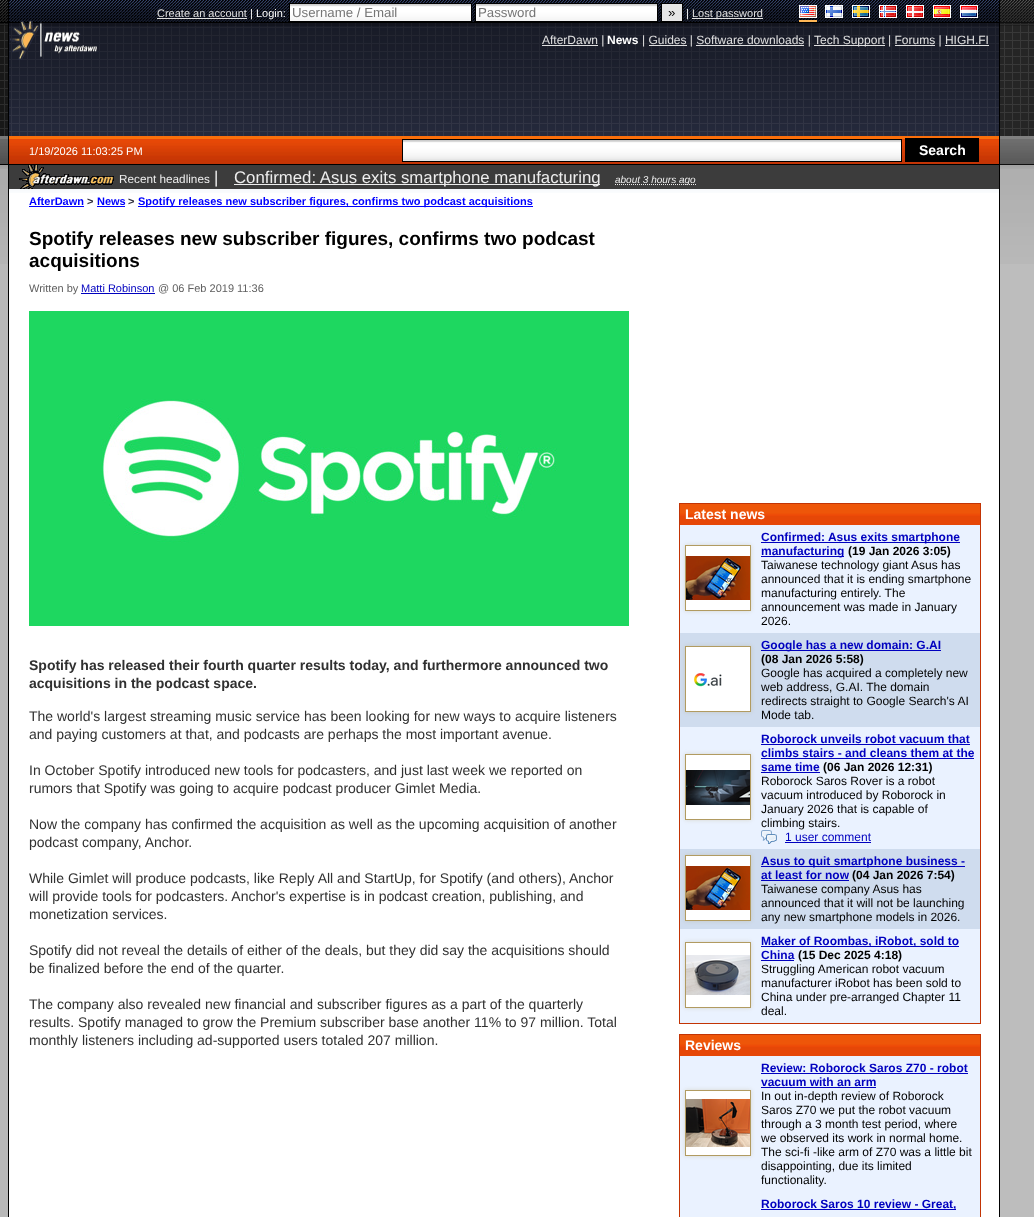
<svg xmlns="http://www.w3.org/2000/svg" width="1034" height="1217">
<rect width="100%" height="100%" fill="#fff"/>
<image x="0" y="0" width="1034" height="23" href="media/1.png"/>
<image x="9" y="0" width="990" height="23" href="media/2.png"/>
<rect y="23" width="1034" height="113" fill="#181818"/>
<image x="0" y="23" width="1034" height="113" href="media/11.png"/>
<image x="0" y="136" width="1034" height="29" href="media/15.png"/>
<rect y="264" width="1034" height="953" fill="#b9b9b9"/>
<image x="0" y="165" width="1034" height="99" href="media/18.png"/>
<rect x="999" width="1" height="1217" fill="#000"/>
<rect x="8" width="1" height="1217" fill="#000"/>
<text x="157" y="17" style="font-family:Liberation Sans;font-size:11px;fill:#e0e0e0">Create an account</text>
<rect x="157" y="18" width="90" height="1" fill="#e0e0e0"/>
<text x="250" y="17" style="font-family:Liberation Sans;font-size:11px;fill:#fff">| Login:</text>
<image x="290" y="4" width="181" height="17" href="media/3.png"/>
<rect x="289.5" y="3.5" width="182" height="18" fill="none" stroke="#000"/>
<text x="292" y="17" style="font-family:Liberation Sans;font-size:13.25px;fill:#757575">Username / Email</text>
<image x="476" y="4" width="181" height="17" href="media/3.png"/>
<rect x="475.5" y="3.5" width="182" height="18" fill="none" stroke="#000"/>
<text x="478" y="17" style="font-family:Liberation Sans;font-size:13.25px;fill:#757575">Password</text>
<rect x="661.5" y="3.5" width="21" height="18" fill="#e6e6e6" stroke="#000"/>
<text x="668" y="17" style="font-family:Liberation Sans;font-size:13.25px;fill:#000">»</text>
<text x="686" y="17" style="font-family:Liberation Sans;font-size:11px;fill:#fff">|</text>
<rect x="692" y="18" width="71" height="1" fill="#e0e0e0"/>
<text x="692" y="17" style="font-family:Liberation Sans;font-size:11px;fill:#e0e0e0">Lost password</text>
<rect x="799" y="20" width="18" height="2" fill="#feb656"/>
<image x="800" y="6" width="16" height="11" href="media/4.png"/>
<rect x="799.5" y="5.5" width="17" height="12" fill="none" stroke="#fff"/>
<image x="826" y="6" width="16" height="11" href="media/5.png"/>
<rect x="825.5" y="5.5" width="17" height="12" fill="none" stroke="#fff"/>
<image x="853" y="6" width="16" height="11" href="media/6.png"/>
<rect x="852.5" y="5.5" width="17" height="12" fill="none" stroke="#fff"/>
<image x="880" y="6" width="16" height="11" href="media/7.png"/>
<rect x="879.5" y="5.5" width="17" height="12" fill="none" stroke="#fff"/>
<image x="907" y="6" width="16" height="11" href="media/8.png"/>
<rect x="906.5" y="5.5" width="17" height="12" fill="none" stroke="#fff"/>
<image x="934" y="6" width="16" height="11" href="media/9.png"/>
<rect x="933.5" y="5.5" width="17" height="12" fill="none" stroke="#fff"/>
<image x="961" y="6" width="16" height="11" href="media/10.png"/>
<rect x="960.5" y="5.5" width="17" height="12" fill="none" stroke="#fff"/>
<rect x="9" y="23" width="990" height="113" fill="#31374f"/>
<image x="9" y="23" width="990" height="113" href="media/12.png"/>
<image x="9" y="23" width="990" height="113" href="media/14.png"/>
<rect x="1000" width="34" height="1217" fill="#ffffff0f"/>
<rect y="23" width="1034" height="3" fill="#00000033"/>
<image x="10" y="21" width="88" height="39" href="media/13.png"/>
<rect x="542" y="45" width="56" height="1" fill="#e0e0e0"/>
<text x="542" y="44" style="font-family:Liberation Sans;font-size:12px;fill:#e0e0e0">AfterDawn |</text>
<text x="607" y="44" style="font-family:Liberation Sans;font-size:12px;font-weight:bold;fill:#fff">News</text>
<text x="642" y="44" style="font-family:Liberation Sans;font-size:12px;fill:#e0e0e0">| Guides | Software downloads |</text>
<rect x="814" y="45" width="71" height="1" fill="#e0e0e0"/>
<text x="814" y="44" style="font-family:Liberation Sans;font-size:12px;fill:#e0e0e0">Tech Support | Forums | HIGH.FI</text>
<rect x="649" y="45" width="38" height="1" fill="#e0e0e0"/>
<rect x="696" y="45" width="108" height="1" fill="#e0e0e0"/>
<rect x="895" y="45" width="40" height="1" fill="#e0e0e0"/>
<rect x="945" y="45" width="44" height="1" fill="#e0e0e0"/>
<image x="9" y="136" width="990" height="28" href="media/16.png"/>
<text x="29" y="155" style="font-family:Liberation Sans;font-size:11px;fill:#fff">1/19/2026 11:03:25 PM</text>
<rect x="403" y="159" width="498" height="2" fill="#e6e6e6"/>
<image x="403" y="140" width="498" height="19" href="media/17.png"/>
<rect x="402.5" y="139.5" width="499" height="22" fill="none" stroke="#000"/>
<rect x="905" y="138" width="74" height="24" fill="#000"/>
<text x="919" y="155" style="font-family:Liberation Sans;font-size:14px;font-weight:bold;fill:#fff">Search</text>
<rect x="9" y="193" width="990" height="1024" fill="#fff"/>
<image x="9" y="189" width="990" height="4" href="media/19.png"/>
<rect x="9" y="165" width="990" height="24" fill="#3c3c3c"/>
<image x="19" y="165" width="95" height="24" href="media/20.png"/>
<text x="119" y="183" style="font-family:Liberation Sans;font-size:11.75px;fill:#eee">Recent headlines</text>
<text x="214" y="183" style="font-family:Liberation Sans;font-size:16.8px;fill:#eee">|</text>
<rect x="234" y="184" width="366" height="1" fill="#eee"/>
<text x="234" y="183" style="font-family:Liberation Sans;font-size:16.8px;fill:#eee">Confirmed: Asus exits smartphone manufacturing</text>
<path d="M615 184.5h81" fill="none" stroke="#eee" stroke-dasharray="1 1"/>
<text x="615" y="183" style="font-family:Liberation Sans;font-size:10px;font-style:italic;fill:#eee">about 3 hours ago</text>
<text x="29" y="205" style="font-family:Liberation Sans;font-size:11px;font-weight:bold;fill:#00f">AfterDawn</text>
<rect x="29" y="206" width="55" height="1" fill="#00f"/>
<text x="87" y="205" style="font-family:Liberation Sans;font-size:11px;font-weight:bold;fill:#30303d">&gt;</text>
<text x="97" y="205" style="font-family:Liberation Sans;font-size:11px;font-weight:bold;fill:#00f">News</text>
<rect x="97" y="206" width="28" height="1" fill="#00f"/>
<text x="128" y="205" style="font-family:Liberation Sans;font-size:11px;font-weight:bold;fill:#30303d">&gt;</text>
<rect x="138" y="206" width="395" height="1" fill="#00f"/>
<text x="138" y="205" style="font-family:Liberation Sans;font-size:11px;font-weight:bold;fill:#00f">Spotify releases new subscriber figures, confirms two podcast acquisitions</text>
<text x="29" y="245" style="font-family:Liberation Sans;font-size:19px;font-weight:bold;fill:#000">Spotify releases new subscriber figures, confirms two podcast</text>
<text x="29" y="267" style="font-family:Liberation Sans;font-size:19px;font-weight:bold;fill:#000">acquisitions</text>
<text x="29" y="292" style="font-family:Liberation Sans;font-size:11px;fill:#606060">Written by</text>
<text x="81" y="292" style="font-family:Liberation Sans;font-size:11px;fill:#0000bf">Matti Robinson</text>
<rect x="81" y="293" width="74" height="1" fill="#0000bf"/>
<text x="158" y="292" style="font-family:Liberation Sans;font-size:11px;fill:#606060">@ 06 Feb 2019 11:36</text>
<image x="29" y="311" width="600" height="315" href="media/21.png"/>
<text x="29" y="670" style="font-family:Liberation Sans;font-size:14px;font-weight:bold;fill:#303030">Spotify has released their fourth quarter results today, and furthermore announced two</text>
<text x="29" y="688" style="font-family:Liberation Sans;font-size:14px;font-weight:bold;fill:#303030">acquisitions in the podcast space.</text>
<text x="29" y="721" style="font-family:Liberation Sans;font-size:14px;fill:#303030">The world's largest streaming music service has been looking for new ways to acquire listeners</text>
<text x="29" y="739" style="font-family:Liberation Sans;font-size:14px;fill:#303030">and paying customers at that, and podcasts are perhaps the most important avenue.</text>
<text x="29" y="775" style="font-family:Liberation Sans;font-size:14px;fill:#303030">In October Spotify introduced new tools for podcasters, and just last week we reported on</text>
<text x="29" y="793" style="font-family:Liberation Sans;font-size:14px;fill:#303030">rumors that Spotify was going to acquire podcast producer Gimlet Media.</text>
<text x="29" y="829" style="font-family:Liberation Sans;font-size:14px;fill:#303030">Now the company has confirmed the acquisition as well as the upcoming acquisition of another</text>
<text x="29" y="847" style="font-family:Liberation Sans;font-size:14px;fill:#303030">podcast company, Anchor.</text>
<text x="29" y="883" style="font-family:Liberation Sans;font-size:14px;fill:#303030">While Gimlet will produce podcasts, like Reply All and StartUp, for Spotify (and others), Anchor</text>
<text x="29" y="901" style="font-family:Liberation Sans;font-size:14px;fill:#303030">will provide tools for podcasters. Anchor's expertise is in podcast creation, publishing, and</text>
<text x="29" y="919" style="font-family:Liberation Sans;font-size:14px;fill:#303030">monetization services.</text>
<text x="29" y="955" style="font-family:Liberation Sans;font-size:14px;fill:#303030">Spotify did not reveal the details of either of the deals, but they did say the acquisitions should</text>
<text x="29" y="973" style="font-family:Liberation Sans;font-size:14px;fill:#303030">be finalized before the end of the quarter.</text>
<text x="29" y="1009" style="font-family:Liberation Sans;font-size:14px;fill:#303030">The company also revealed new financial and subscriber figures as a part of the quarterly</text>
<text x="29" y="1027" style="font-family:Liberation Sans;font-size:14px;fill:#303030">results. Spotify managed to grow the Premium subscriber base another 11% to 97 million. Total</text>
<text x="29" y="1045" style="font-family:Liberation Sans;font-size:14px;fill:#303030">monthly listeners including ad-supported users totaled 207 million.</text>
<rect x="679.5" y="503.5" width="301" height="520" fill="none" stroke="#c23405"/>
<rect x="680" y="516" width="300" height="9" fill="#e64707"/>
<image x="680" y="504" width="300" height="12" href="media/22.png"/>
<text x="685" y="519" style="font-family:Liberation Sans;font-size:14px;font-weight:bold;fill:#fff">Latest news</text>
<rect x="680" y="525" width="300" height="108" fill="#eaf2ff"/>
<rect x="685" y="545" width="66" height="66" fill="#b19b614d" filter="blur(2px)"/>
<rect x="685.5" y="545.5" width="65" height="65" fill="#fff" stroke="#b19b61"/>
<image x="686" y="556" width="64" height="44" href="media/23.png"/>
<rect x="761" y="542" width="199" height="1" fill="#0000bf"/>
<text x="761" y="541" style="font-family:Liberation Sans;font-size:12px;font-weight:bold;fill:#0000bf">Confirmed: Asus exits smartphone</text>
<rect x="761" y="556" width="83" height="1" fill="#0000bf"/>
<text x="761" y="555" style="font-family:Liberation Sans;font-size:12px;font-weight:bold;fill:#0000bf">manufacturing</text>
<text x="848" y="555" style="font-family:Liberation Sans;font-size:12px;font-weight:bold;fill:#000">(19 Jan 2026 3:05)</text>
<text x="761" y="569" style="font-family:Liberation Sans;font-size:12px;fill:#000">Taiwanese technology giant Asus has</text>
<text x="761" y="583" style="font-family:Liberation Sans;font-size:12px;fill:#000">announced that it is ending smartphone</text>
<text x="761" y="597" style="font-family:Liberation Sans;font-size:12px;fill:#000">manufacturing entirely. The</text>
<text x="761" y="611" style="font-family:Liberation Sans;font-size:12px;fill:#000">announcement was made in January</text>
<text x="761" y="625" style="font-family:Liberation Sans;font-size:12px;fill:#000">2026.</text>
<rect x="680" y="633" width="300" height="94" fill="#cfdcee"/>
<rect x="685" y="646" width="66" height="66" fill="#b19b614d" filter="blur(2px)"/>
<rect x="685.5" y="646.5" width="65" height="65" fill="#fff" stroke="#b19b61"/>
<image x="693" y="673" width="29" height="14" href="media/24.png"/>
<rect x="761" y="650" width="180" height="1" fill="#0000bf"/>
<text x="761" y="649" style="font-family:Liberation Sans;font-size:12px;font-weight:bold;fill:#0000bf">Google has a new domain: G.AI</text>
<text x="761" y="663" style="font-family:Liberation Sans;font-size:12px;font-weight:bold;fill:#000">(08 Jan 2026 5:58)</text>
<text x="761" y="677" style="font-family:Liberation Sans;font-size:12px;fill:#000">Google has acquired a completely new</text>
<text x="761" y="691" style="font-family:Liberation Sans;font-size:12px;fill:#000">web address, G.AI. The domain</text>
<text x="761" y="705" style="font-family:Liberation Sans;font-size:12px;fill:#000">redirects straight to Google Search's AI</text>
<text x="761" y="719" style="font-family:Liberation Sans;font-size:12px;fill:#000">Mode tab.</text>
<rect x="680" y="727" width="300" height="122" fill="#eaf2ff"/>
<rect x="685" y="754" width="66" height="66" fill="#b19b614d" filter="blur(2px)"/>
<rect x="685.5" y="754.5" width="65" height="65" fill="#fff" stroke="#b19b61"/>
<image x="686" y="770" width="64" height="35" href="media/25.png"/>
<text x="761" y="743" style="font-family:Liberation Sans;font-size:12px;font-weight:bold;fill:#0000bf">Roborock unveils robot vacuum that</text>
<rect x="761" y="744" width="209" height="1" fill="#0000bf"/>
<text x="761" y="757" style="font-family:Liberation Sans;font-size:12px;font-weight:bold;fill:#0000bf">climbs stairs - and cleans them at the</text>
<rect x="761" y="758" width="213" height="1" fill="#0000bf"/>
<text x="761" y="771" style="font-family:Liberation Sans;font-size:12px;font-weight:bold;fill:#0000bf">same time</text>
<rect x="761" y="772" width="59" height="1" fill="#0000bf"/>
<text x="823" y="771" style="font-family:Liberation Sans;font-size:12px;font-weight:bold;fill:#000">(06 Jan 2026 12:31)</text>
<text x="761" y="785" style="font-family:Liberation Sans;font-size:12px;fill:#000">Roborock Saros Rover is a robot</text>
<text x="761" y="799" style="font-family:Liberation Sans;font-size:12px;fill:#000">vacuum introduced by Roborock in</text>
<text x="761" y="813" style="font-family:Liberation Sans;font-size:12px;fill:#000">January 2026 that is capable of</text>
<text x="761" y="827" style="font-family:Liberation Sans;font-size:12px;fill:#000">climbing stairs.</text>
<image x="761" y="830" width="16" height="14" href="media/26.png"/>
<text x="785" y="841" style="font-family:Liberation Sans;font-size:12px;fill:#0000bf">1 user comment</text>
<rect x="785" y="842" width="86" height="1" fill="#0000bf"/>
<rect x="680" y="849" width="300" height="80" fill="#cfdcee"/>
<rect x="685" y="855" width="66" height="66" fill="#b19b614d" filter="blur(2px)"/>
<rect x="685.5" y="855.5" width="65" height="65" fill="#fff" stroke="#b19b61"/>
<image x="686" y="866" width="64" height="44" href="media/23.png"/>
<rect x="761" y="866" width="204" height="1" fill="#0000bf"/>
<text x="761" y="865" style="font-family:Liberation Sans;font-size:12px;font-weight:bold;fill:#0000bf">Asus to quit smartphone business -</text>
<text x="761" y="879" style="font-family:Liberation Sans;font-size:12px;font-weight:bold;fill:#0000bf">at least for now</text>
<rect x="761" y="880" width="88" height="1" fill="#0000bf"/>
<text x="852" y="879" style="font-family:Liberation Sans;font-size:12px;font-weight:bold;fill:#000">(04 Jan 2026 7:54)</text>
<text x="761" y="893" style="font-family:Liberation Sans;font-size:12px;fill:#000">Taiwanese company Asus has</text>
<text x="761" y="907" style="font-family:Liberation Sans;font-size:12px;fill:#000">announced that it will not be launching</text>
<text x="761" y="921" style="font-family:Liberation Sans;font-size:12px;fill:#000">any new smartphone models in 2026.</text>
<rect x="680" y="929" width="300" height="94" fill="#eaf2ff"/>
<rect x="685" y="942" width="66" height="66" fill="#b19b614d" filter="blur(2px)"/>
<rect x="685.5" y="942.5" width="65" height="65" fill="#fff" stroke="#b19b61"/>
<image x="686" y="955" width="64" height="40" href="media/27.png"/>
<rect x="761" y="946" width="198" height="1" fill="#0000bf"/>
<text x="761" y="945" style="font-family:Liberation Sans;font-size:12px;font-weight:bold;fill:#0000bf">Maker of Roombas, iRobot, sold to</text>
<text x="761" y="959" style="font-family:Liberation Sans;font-size:12px;font-weight:bold;fill:#0000bf">China</text>
<rect x="761" y="960" width="33" height="1" fill="#0000bf"/>
<text x="798" y="959" style="font-family:Liberation Sans;font-size:12px;font-weight:bold;fill:#000">(15 Dec 2025 4:18)</text>
<text x="761" y="973" style="font-family:Liberation Sans;font-size:12px;fill:#000">Struggling American robot vacuum</text>
<text x="761" y="987" style="font-family:Liberation Sans;font-size:12px;fill:#000">manufacturer iRobot has been sold to</text>
<text x="761" y="1001" style="font-family:Liberation Sans;font-size:12px;fill:#000">China under pre-arranged Chapter 11</text>
<text x="761" y="1015" style="font-family:Liberation Sans;font-size:12px;fill:#000">deal.</text>
<rect x="679.5" y="1034.5" width="301" height="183" fill="none" stroke="#c23405"/>
<rect x="680" y="1047" width="300" height="9" fill="#e64707"/>
<image x="680" y="1035" width="300" height="12" href="media/22.png"/>
<text x="685" y="1050" style="font-family:Liberation Sans;font-size:14px;font-weight:bold;fill:#fff">Reviews</text>
<rect x="680" y="1056" width="300" height="161" fill="#eaf2ff"/>
<rect x="685" y="1090" width="66" height="66" fill="#b19b614d" filter="blur(2px)"/>
<rect x="685.5" y="1090.5" width="65" height="65" fill="#fff" stroke="#b19b61"/>
<image x="686" y="1099" width="64" height="48" href="media/28.png"/>
<text x="761" y="1072" style="font-family:Liberation Sans;font-size:12px;font-weight:bold;fill:#0000bf">Review: Roborock Saros Z70 - robot</text>
<rect x="761" y="1073" width="207" height="1" fill="#0000bf"/>
<text x="761" y="1086" style="font-family:Liberation Sans;font-size:12px;font-weight:bold;fill:#0000bf">vacuum with an arm</text>
<rect x="761" y="1087" width="115" height="1" fill="#0000bf"/>
<text x="761" y="1100" style="font-family:Liberation Sans;font-size:12px;fill:#000">In out in-depth review of Roborock</text>
<text x="761" y="1114" style="font-family:Liberation Sans;font-size:12px;fill:#000">Saros Z70 we put the robot vacuum</text>
<text x="761" y="1128" style="font-family:Liberation Sans;font-size:12px;fill:#000">through a 3 month test period, where</text>
<text x="761" y="1142" style="font-family:Liberation Sans;font-size:12px;fill:#000">we observed its work in normal home.</text>
<text x="761" y="1156" style="font-family:Liberation Sans;font-size:12px;fill:#000">The sci-fi -like arm of Z70 was a little bit</text>
<text x="761" y="1170" style="font-family:Liberation Sans;font-size:12px;fill:#000">disappointing, due its limited</text>
<text x="761" y="1184" style="font-family:Liberation Sans;font-size:12px;fill:#000">functionality.</text>
<rect x="761" y="1209" width="195" height="1" fill="#0000bf"/>
<text x="761" y="1208" style="font-family:Liberation Sans;font-size:12px;font-weight:bold;fill:#0000bf">Roborock Saros 10 review - Great,</text>
</svg>
